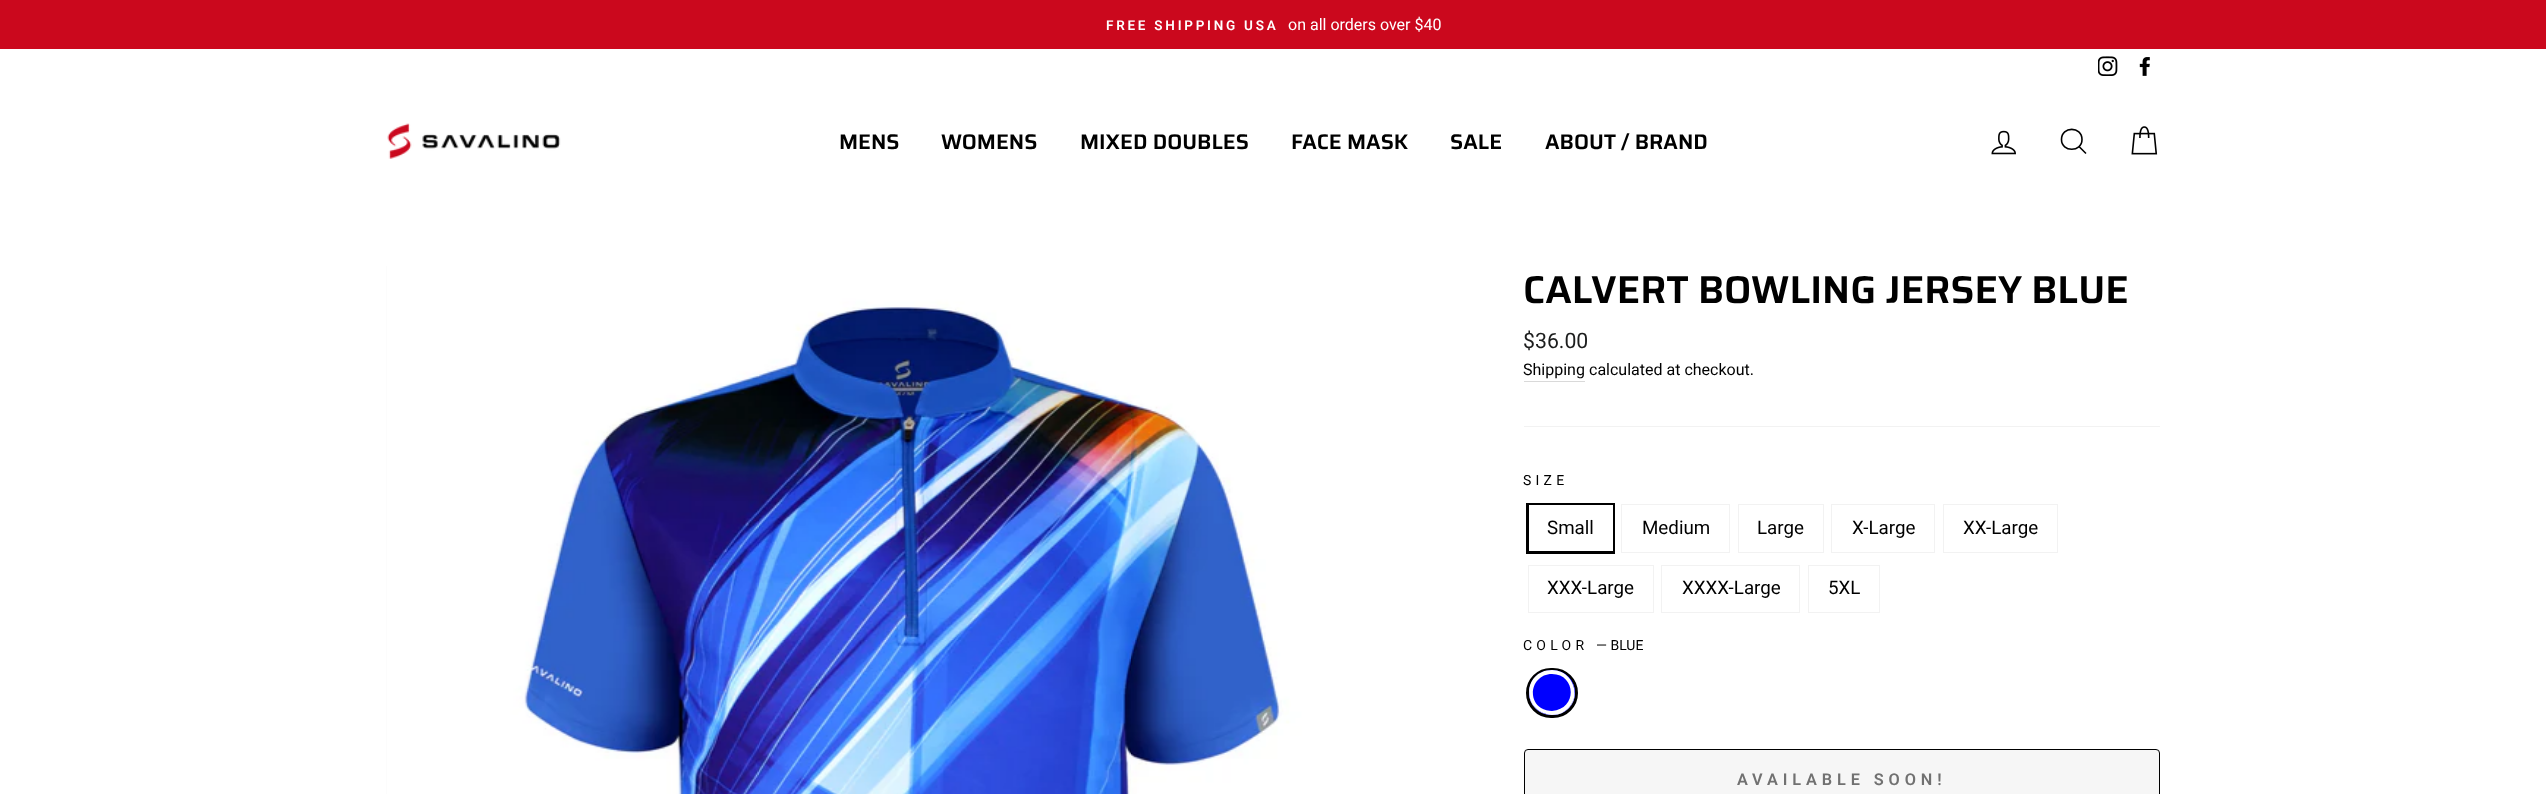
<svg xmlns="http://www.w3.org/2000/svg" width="2546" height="794">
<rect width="100%" height="100%" fill="#fff"/>
<rect width="2546" height="49" fill="#cb081d"/>
<text x="1106" y="30" style="font-family:Roboto;font-size:13.5px;font-weight:600;letter-spacing:2.75px;fill:#fff">FREE SHIPPING USA</text>
<text x="1288" y="30" style="font-family:Roboto;font-size:16px;fill:#fff">on all orders over $40</text>
<image x="2098" y="56" width="20" height="20" href="media/1.png"/>
<image x="2139" y="57" width="11" height="19" href="media/2.png"/>
<rect y="85" width="2546" height="113" fill="#00000033" filter="blur(0.5px)"/>
<rect y="85" width="2546" height="113" fill="#fff"/>
<image x="387" y="123" width="174" height="36" href="media/3.png"/>
<text x="839" y="149" style="font-family:Saira;font-size:21.25px;font-weight:600;fill:#000">MENS</text>
<text x="941" y="149" style="font-family:Saira;font-size:21.25px;font-weight:600;fill:#000">WOMENS</text>
<text x="1080" y="149" style="font-family:Saira;font-size:21.25px;font-weight:600;fill:#000">MIXED DOUBLES</text>
<text x="1291" y="149" style="font-family:Saira;font-size:21.25px;font-weight:600;fill:#000">FACE MASK</text>
<text x="1450" y="149" style="font-family:Saira;font-size:21.25px;font-weight:600;fill:#000">SALE</text>
<text x="1545" y="149" style="font-family:Saira;font-size:21.25px;font-weight:600;fill:#000">ABOUT / BRAND</text>
<image x="1991" y="130" width="25" height="25" href="media/4.png"/>
<path d="M2082 139.5c0 13-20.5 13-20.5 0c0-13.5 20.5-13.5 20.5 0zm4 14l-7-7" fill="none" stroke="#000" stroke-width="1.6"/>
<image x="2131" y="126" width="27" height="29" href="media/5.png"/>
<rect x="386" y="266" width="1" height="528" fill="#f7f7f9"/>
<image x="386" y="266" width="1054" height="528" href="media/6.png"/>
<text x="1523" y="303" style="font-family:Saira;font-size:38.75px;font-weight:600;fill:#000">CALVERT BOWLING JERSEY BLUE</text>
<text x="1523" y="348" style="font-family:Roboto;font-size:21.25px;fill:#1c1d1d">$36.00</text>
<rect x="1524" y="381" width="61" height="1" fill="#d9d9d9"/>
<text x="1523" y="375" style="font-family:Roboto;font-size:16px;fill:#000">Shipping</text>
<text x="1589" y="375" style="font-family:Roboto;font-size:16px;fill:#000">calculated at checkout.</text>
<rect x="1524" y="426" width="636" height="1" fill="#f2f2f2"/>
<text x="1523" y="485" style="font-family:Roboto;font-size:14px;letter-spacing:4.25px;fill:#000">SIZE</text>
<rect x="1527.5" y="504.5" width="86" height="48" fill="none" stroke="#000" stroke-width="3"/>
<rect x="1529" y="505" width="84" height="46" fill="#fff"/>
<text x="1547" y="534" style="font-family:Roboto;font-size:18.75px;fill:#000">Small</text>
<rect x="1621.5" y="504.5" width="108" height="48" fill="none" stroke="#f2f2f2"/>
<text x="1642" y="534" style="font-family:Roboto;font-size:18.75px;fill:#000">Medium</text>
<rect x="1738.5" y="504.5" width="85" height="48" fill="none" stroke="#f2f2f2"/>
<text x="1757" y="534" style="font-family:Roboto;font-size:18.75px;fill:#000">Large</text>
<rect x="1831.5" y="504.5" width="103" height="48" fill="none" stroke="#f2f2f2"/>
<text x="1852" y="534" style="font-family:Roboto;font-size:18.75px;fill:#000">X-Large</text>
<rect x="1943.5" y="504.5" width="114" height="48" fill="none" stroke="#f2f2f2"/>
<text x="1963" y="534" style="font-family:Roboto;font-size:18.75px;fill:#000">XX-Large</text>
<rect x="1528.5" y="565.5" width="125" height="47" fill="none" stroke="#f2f2f2"/>
<text x="1547" y="594" style="font-family:Roboto;font-size:18.75px;fill:#000">XXX-Large</text>
<rect x="1661.5" y="565.5" width="138" height="47" fill="none" stroke="#f2f2f2"/>
<text x="1682" y="594" style="font-family:Roboto;font-size:18.75px;fill:#000">XXXX-Large</text>
<rect x="1808.5" y="565.5" width="71" height="47" fill="none" stroke="#f2f2f2"/>
<text x="1828" y="594" style="font-family:Roboto;font-size:18.75px;fill:#000">5XL</text>
<text x="1523" y="650" style="font-family:Roboto;font-size:14px;letter-spacing:4.25px;fill:#000">COLOR</text>
<text x="1596" y="650" style="font-family:Roboto;font-size:14px;fill:#000">— BLUE</text>
<rect x="1527.5" y="669.5" width="49" height="47" rx="23.5" fill="none" stroke="#000" stroke-width="3"/>
<rect x="1529" y="670" width="46" height="45" rx="22.5" fill="#00f"/>
<path d="M1552 670c-29 0-32 42 0 45c4 0 9-1 13-4c18-12 9-41-13-41zm0 4c-19 0-26 24-11 34c3 2 8 3 11 3c26-2 24-37 0-37z" fill="#fff" fill-rule="evenodd"/>
<rect x="1524.5" y="749.5" width="635" height="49" rx="3.5" fill="#f6f6f6" stroke="#000"/>
<text x="1737" y="785" style="font-family:Roboto;font-size:16.25px;font-weight:600;letter-spacing:4.9px;fill:#717171">AVAILABLE SOON!</text>
</svg>
